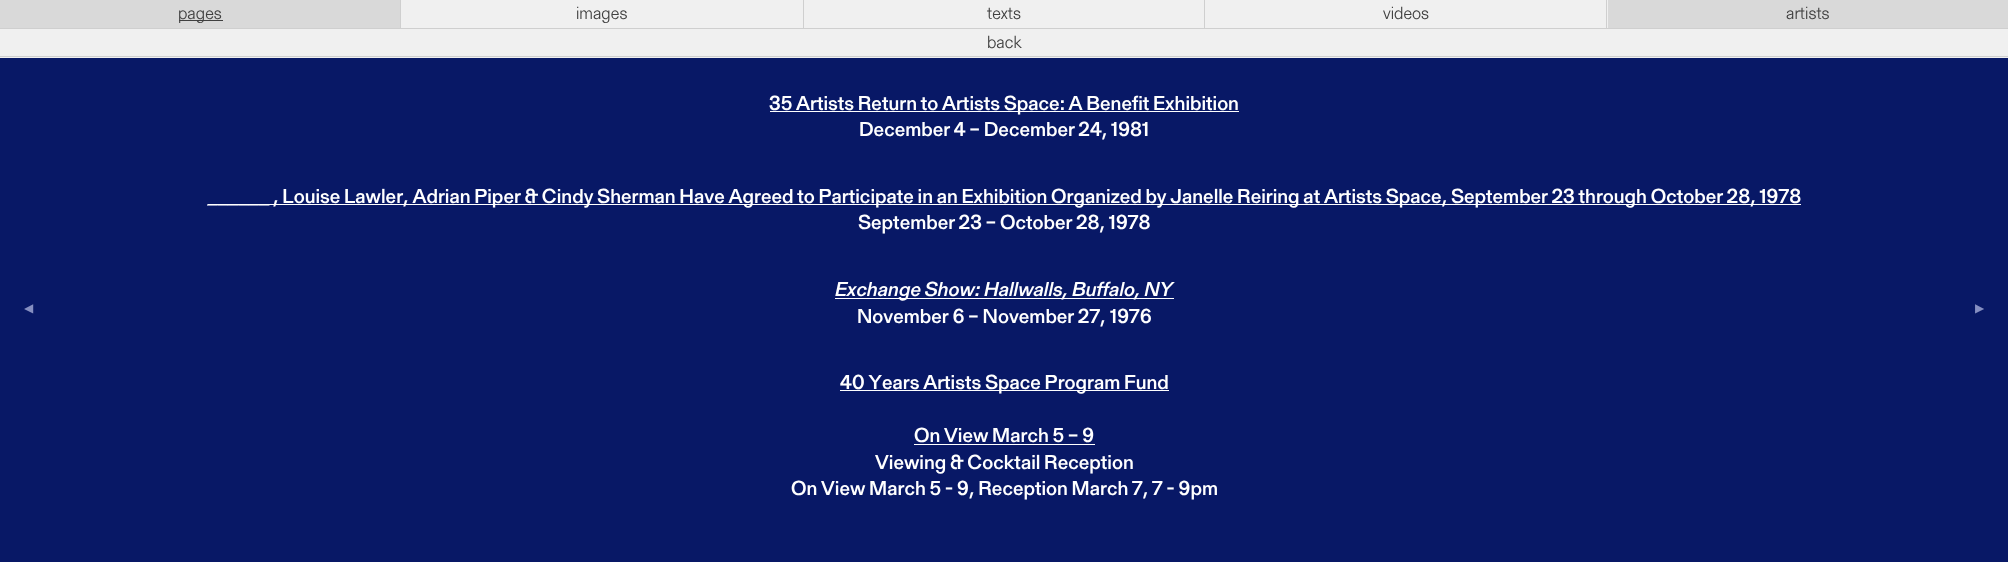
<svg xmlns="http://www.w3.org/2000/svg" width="2008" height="562">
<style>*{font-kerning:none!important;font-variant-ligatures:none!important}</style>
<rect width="100%" height="100%" fill="#081866"/>
<rect width="2008" height="58" fill="#f0f0f0"/>
<rect width="400" height="28" fill="#d9d9d9"/>
<rect x="400" width="1" height="29" fill="#cfcfcf"/>
<rect y="28" width="401" height="1" fill="#cfcfcf"/>
<rect x="179" y="20" width="44" height="1" fill="#404040"/>
<text x="178" y="19" style="font-family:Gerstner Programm;font-size:17.5px;font-weight:300;fill:#404040">pages</text>
<rect x="803" width="1" height="29" fill="#cfcfcf"/>
<rect x="401" y="28" width="403" height="1" fill="#cfcfcf"/>
<text x="576" y="19" style="font-family:Gerstner Programm;font-size:17.5px;font-weight:300;fill:#404040">images</text>
<rect x="1204" width="1" height="29" fill="#cfcfcf"/>
<rect x="804" y="28" width="401" height="1" fill="#cfcfcf"/>
<text x="987" y="19" style="font-family:Gerstner Programm;font-size:17.5px;font-weight:300;fill:#404040">texts</text>
<rect x="1606" width="1" height="29" fill="#cfcfcf"/>
<rect x="1205" y="28" width="803" height="1" fill="#cfcfcf"/>
<text x="1383" y="19" style="font-family:Gerstner Programm;font-size:17.5px;font-weight:300;fill:#404040">videos</text>
<rect x="1608" width="400" height="28" fill="#d9d9d9"/>
<text x="1786" y="19" style="font-family:Gerstner Programm;font-size:17.5px;font-weight:300;fill:#404040">artists</text>
<rect y="56" width="2008" height="1" fill="#cfcfcf"/>
<text x="987" y="48" style="font-family:Gerstner Programm;font-size:17.5px;font-weight:300;fill:#404040">back</text>
<rect x="770" y="111" width="469" height="1" fill="#fff"/>
<text x="769" y="110" style="font-family:Gerstner Programm;font-size:20px;font-weight:500;fill:#fff">35 Artists Return to Artists Space: A Benefit Exhibition</text>
<text x="859" y="136" style="font-family:Gerstner Programm;font-size:20px;font-weight:500;fill:#fff">December 4 – December 24, 1981</text>
<rect x="208" y="204" width="1593" height="1" fill="#fff"/>
<text x="207" y="203" style="font-family:Gerstner Programm;font-size:20px;font-weight:500;fill:#fff">______ , Louise Lawler, Adrian Piper &amp; Cindy Sherman Have Agreed to Participate in an Exhibition Organized by Janelle Reiring at Artists Space, September 23 through October 28, 1978</text>
<text x="858" y="229" style="font-family:Gerstner Programm;font-size:20px;font-weight:500;fill:#fff">September 23 – October 28, 1978</text>
<rect x="835" y="298" width="339" height="1" fill="#fff"/>
<text x="835" y="296" style="font-family:Gerstner Programm;font-size:20px;font-weight:500;font-style:italic;fill:#fff">Exchange Show: Hallwalls, Buffalo, NY</text>
<text x="857" y="323" style="font-family:Gerstner Programm;font-size:20px;font-weight:500;fill:#fff">November 6 – November 27,</text>
<text x="1110" y="323" style="font-family:Gerstner Programm;font-size:20px;font-weight:500;fill:#fff">1976</text>
<rect x="840" y="390" width="329" height="1" fill="#fff"/>
<text x="840" y="389" style="font-family:Gerstner Programm;font-size:20px;font-weight:500;fill:#fff">40 Years Artists Space Program Fund</text>
<text x="914" y="442" style="font-family:Gerstner Programm;font-size:20px;font-weight:500;fill:#fff">On View March 5 – 9</text>
<rect x="914" y="444" width="181" height="1" fill="#fff"/>
<text x="875" y="469" style="font-family:Gerstner Programm;font-size:20px;font-weight:500;fill:#fff">Viewing &amp; Cocktail Reception</text>
<text x="791" y="495" style="font-family:Gerstner Programm;font-size:20px;font-weight:500;fill:#fff">On View March 5 - 9, Reception March 7, 7 - 9pm</text>
<text x="24" y="312" style="font-family:DejaVu Sans;font-size:12px;fill:#868fc1">◀︎</text>
<text x="1975" y="312" style="font-family:DejaVu Sans;font-size:12px;fill:#868fc1">▶︎</text>
</svg>
